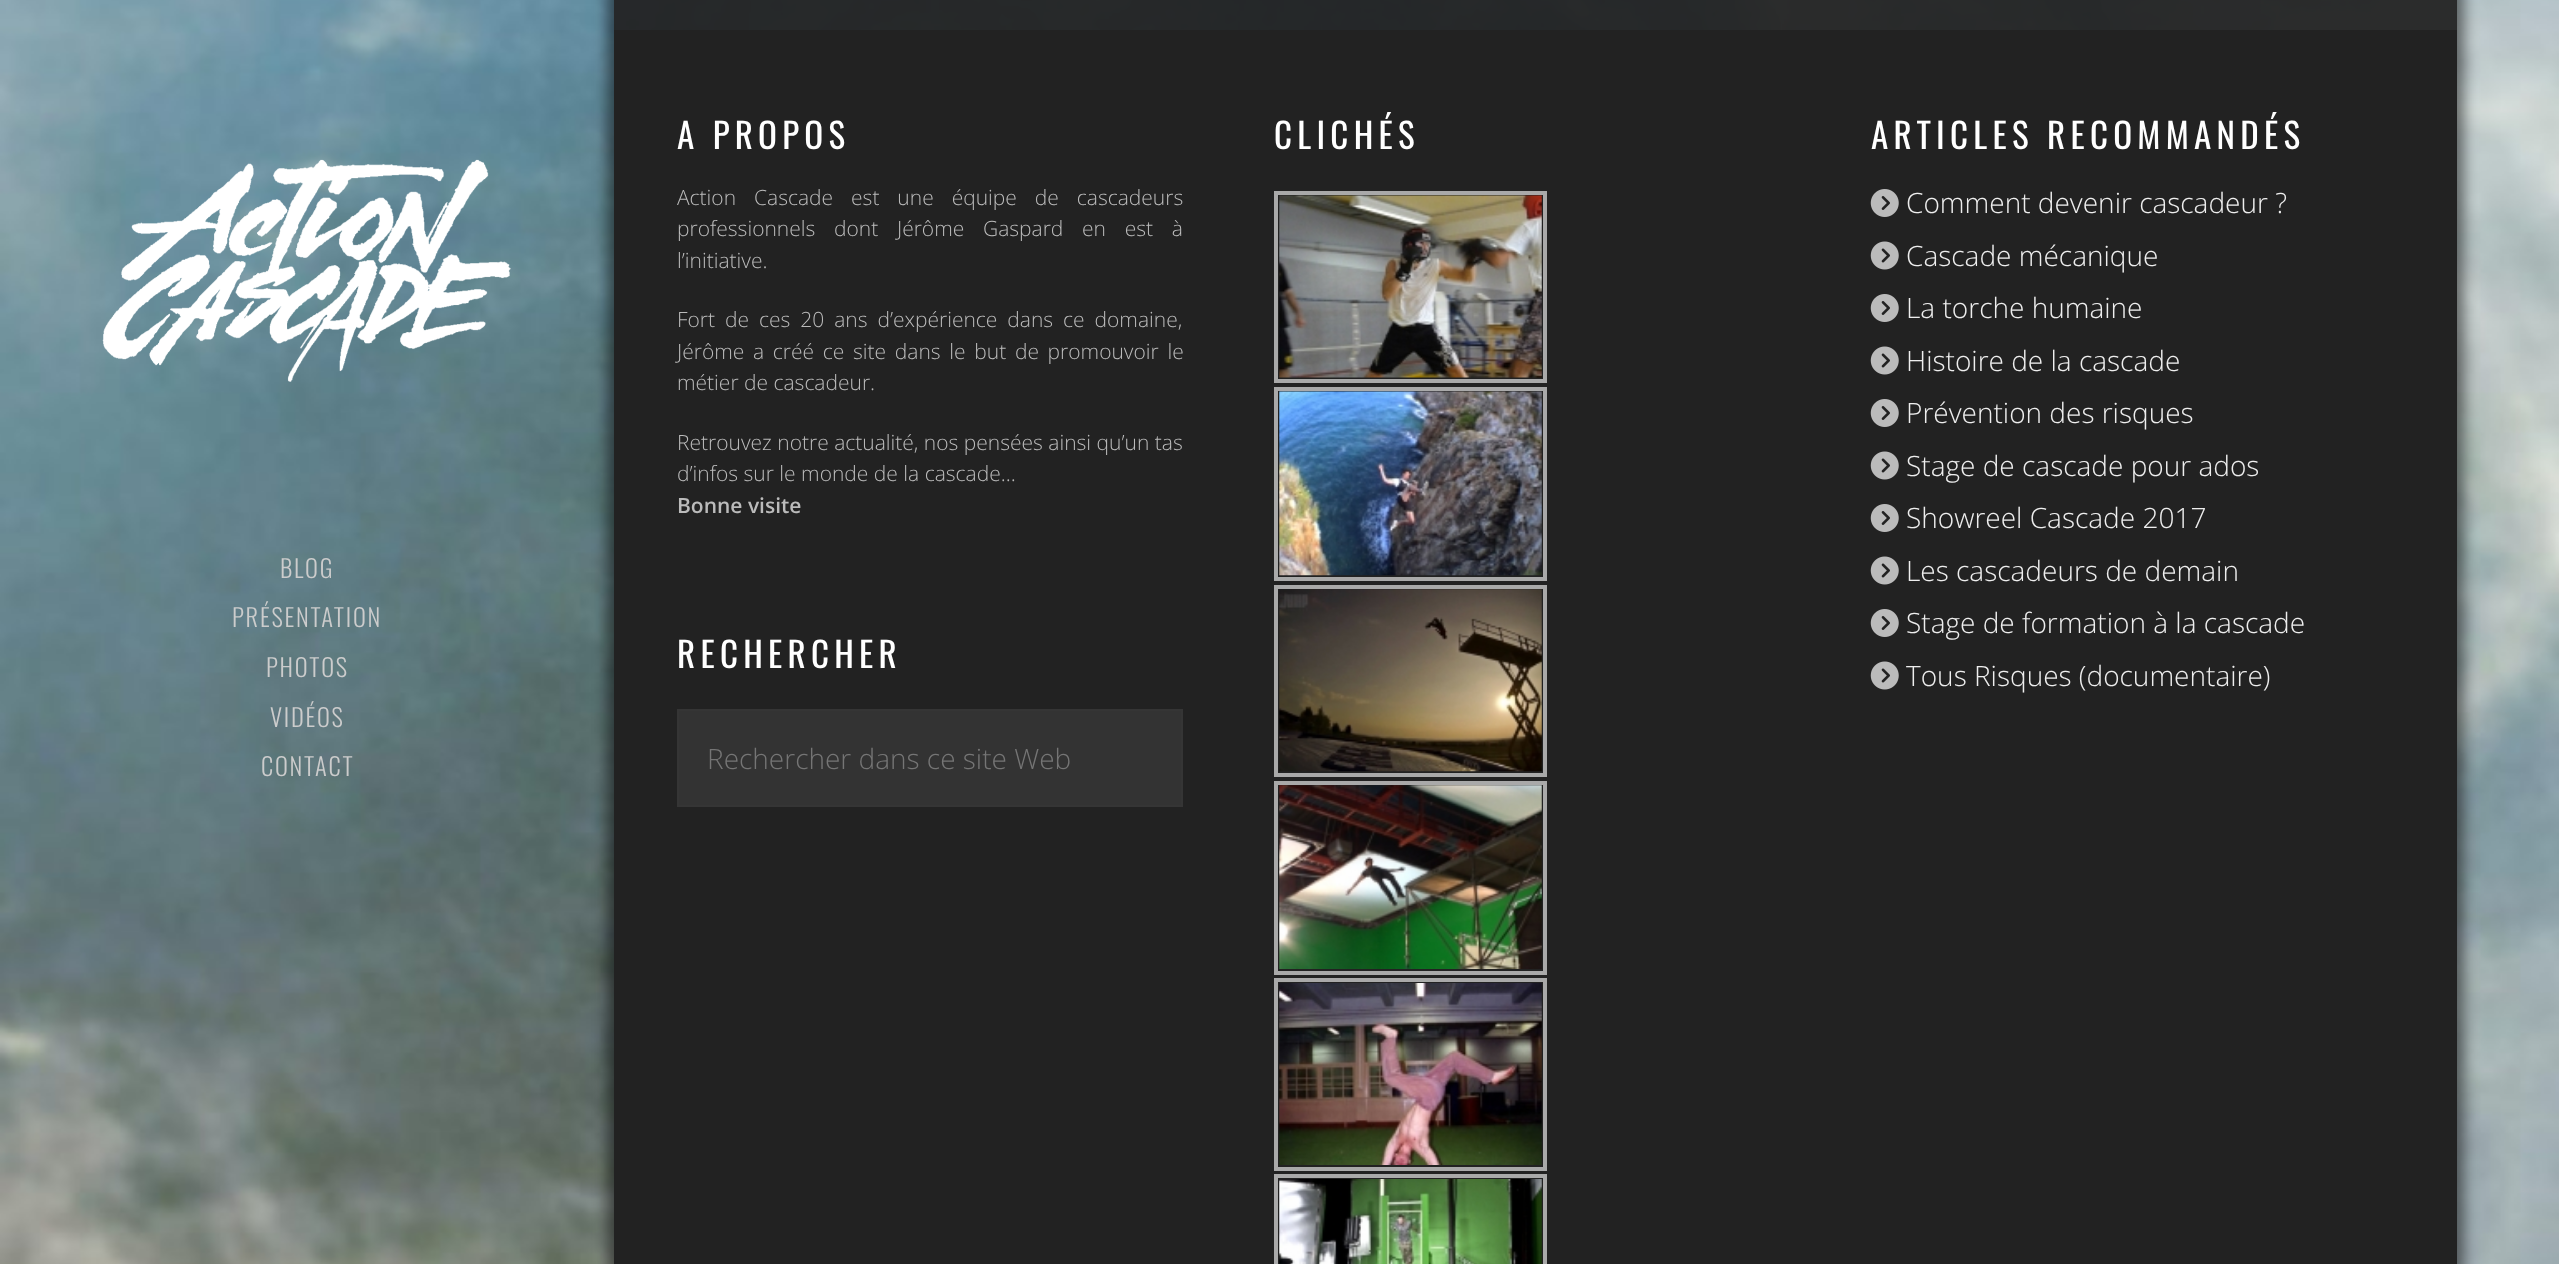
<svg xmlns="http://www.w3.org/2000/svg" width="2559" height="1264">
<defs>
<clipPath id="clip1"><path d="M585 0h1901v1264h-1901zm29-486h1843v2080h-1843z" clip-rule="evenodd"/></clipPath>
</defs>
<rect width="100%" height="100%" fill="#fff"/>
<image x="0" y="0" width="2559" height="1264" href="media/1.png"/>
<image x="102" y="159" width="409" height="223" href="media/2.png"/>
<text x="280" y="578" style="font-family:Oswald;font-size:24.5px;font-weight:300;letter-spacing:1.75px;fill:#ccc">BLOG</text>
<text x="232" y="627" style="font-family:Oswald;font-size:24.5px;font-weight:300;letter-spacing:1.75px;fill:#ccc">PRÉSENTATION</text>
<text x="266" y="677" style="font-family:Oswald;font-size:24.5px;font-weight:300;letter-spacing:1.75px;fill:#ccc">PHOTOS</text>
<text x="270" y="727" style="font-family:Oswald;font-size:24.5px;font-weight:300;letter-spacing:1.75px;fill:#ccc">VIDÉOS</text>
<text x="261" y="776" style="font-family:Oswald;font-size:24.5px;font-weight:300;letter-spacing:1.75px;fill:#ccc">CONTACT</text>
<g clip-path="url(#clip1)">
<rect x="607" y="-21" width="1857" height="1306" fill="#00000080" filter="blur(7px)"/>
</g>
<rect x="614" width="1843" height="30" fill="#222222f0"/>
<rect x="614" y="30" width="1843" height="1234" fill="#222"/>
<text x="677" y="149" style="font-family:Oswald;font-size:35px;letter-spacing:5.25px;fill:#fff">A PROPOS</text>
<text x="677" y="205" word-spacing="12.5" style="font-family:Open Sans;font-size:21px;font-weight:300;fill:#bbb">Action Cascade est une équipe de cascadeurs</text>
<text x="677" y="236" word-spacing="13.25" style="font-family:Open Sans;font-size:21px;font-weight:300;fill:#bbb">professionnels dont Jérôme Gaspard en est à</text>
<text x="677" y="268" style="font-family:Open Sans;font-size:21px;font-weight:300;fill:#bbb">l’initiative.</text>
<text x="677" y="327" word-spacing="4.5" style="font-family:Open Sans;font-size:21px;font-weight:300;fill:#bbb">Fort de ces 20 ans d’expérience dans ce domaine,</text>
<text x="677" y="359" word-spacing="3.25" style="font-family:Open Sans;font-size:21px;font-weight:300;fill:#bbb">Jérôme a créé ce site dans le but de promouvoir le</text>
<text x="677" y="390" style="font-family:Open Sans;font-size:21px;font-weight:300;fill:#bbb">métier de cascadeur.</text>
<text x="677" y="450" style="font-family:Open Sans;font-size:21px;font-weight:300;fill:#bbb">Retrouvez notre actualité, nos pensées ainsi qu’un tas</text>
<text x="677" y="481" style="font-family:Open Sans;font-size:21px;font-weight:300;fill:#bbb">d’infos sur le monde de la cascade…</text>
<text x="677" y="513" style="font-family:Open Sans;font-size:21px;font-weight:600;fill:#bbb">Bonne visite</text>
<text x="677" y="668" style="font-family:Oswald;font-size:35px;letter-spacing:5.25px;fill:#fff">RECHERCHER</text>
<rect x="678" y="710" width="504" height="96" fill="#333" stroke="#353535" stroke-width="2"/>
<text x="707" y="769" style="font-family:Open Sans;font-size:28px;font-weight:300;fill:#757575">Rechercher dans ce site Web</text>
<text x="1274" y="149" style="font-family:Oswald;font-size:35px;letter-spacing:5.25px;fill:#fff">CLICHÉS</text>
<rect x="1276" y="193" width="269" height="188" fill="none" stroke="#a9a9a9" stroke-width="4"/>
<image x="1279" y="195" width="263" height="183" href="media/3.png"/>
<rect x="1276" y="389" width="269" height="190" fill="none" stroke="#a9a9a9" stroke-width="4"/>
<image x="1279" y="391" width="263" height="185" href="media/4.png"/>
<rect x="1276" y="587" width="269" height="188" fill="none" stroke="#a9a9a9" stroke-width="4"/>
<image x="1279" y="589" width="263" height="183" href="media/5.png"/>
<rect x="1276" y="783" width="269" height="190" fill="none" stroke="#a9a9a9" stroke-width="4"/>
<image x="1279" y="785" width="263" height="184" href="media/6.png"/>
<rect x="1276" y="980" width="269" height="189" fill="none" stroke="#a9a9a9" stroke-width="4"/>
<image x="1279" y="983" width="263" height="182" href="media/7.png"/>
<rect x="1276" y="1176" width="269" height="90" fill="none" stroke="#a9a9a9" stroke-width="4"/>
<image x="1279" y="1179" width="263" height="85" href="media/8.png"/>
<text x="1871" y="149" style="font-family:Oswald;font-size:35px;letter-spacing:5.25px;fill:#fff">ARTICLES RECOMMANDÉS</text>
<image x="1870" y="189" width="29" height="28" href="media/9.png"/>
<text x="1906" y="213" style="font-family:Open Sans;font-size:28px;font-weight:300;fill:#eee">Comment devenir cascadeur ?</text>
<image x="1870" y="241" width="29" height="29" href="media/10.png"/>
<text x="1906" y="266" style="font-family:Open Sans;font-size:28px;font-weight:300;fill:#eee">Cascade mécanique</text>
<image x="1870" y="294" width="29" height="28" href="media/9.png"/>
<text x="1906" y="318" style="font-family:Open Sans;font-size:28px;font-weight:300;fill:#eee">La torche humaine</text>
<image x="1870" y="346" width="29" height="29" href="media/10.png"/>
<text x="1906" y="371" style="font-family:Open Sans;font-size:28px;font-weight:300;fill:#eee">Histoire de la cascade</text>
<image x="1870" y="399" width="29" height="28" href="media/9.png"/>
<text x="1906" y="423" style="font-family:Open Sans;font-size:28px;font-weight:300;fill:#eee">Prévention des risques</text>
<image x="1870" y="451" width="29" height="29" href="media/10.png"/>
<text x="1906" y="476" style="font-family:Open Sans;font-size:28px;font-weight:300;fill:#eee">Stage de cascade pour ados</text>
<image x="1870" y="504" width="29" height="28" href="media/9.png"/>
<text x="1906" y="528" style="font-family:Open Sans;font-size:28px;font-weight:300;fill:#eee">Showreel Cascade 2017</text>
<image x="1870" y="556" width="29" height="29" href="media/10.png"/>
<text x="1906" y="581" style="font-family:Open Sans;font-size:28px;font-weight:300;fill:#eee">Les cascadeurs de demain</text>
<image x="1870" y="609" width="29" height="28" href="media/9.png"/>
<text x="1906" y="633" style="font-family:Open Sans;font-size:28px;font-weight:300;fill:#eee">Stage de formation à la cascade</text>
<image x="1870" y="661" width="29" height="29" href="media/10.png"/>
<text x="1906" y="686" style="font-family:Open Sans;font-size:28px;font-weight:300;fill:#eee">Tous Risques (documentaire)</text>
</svg>
